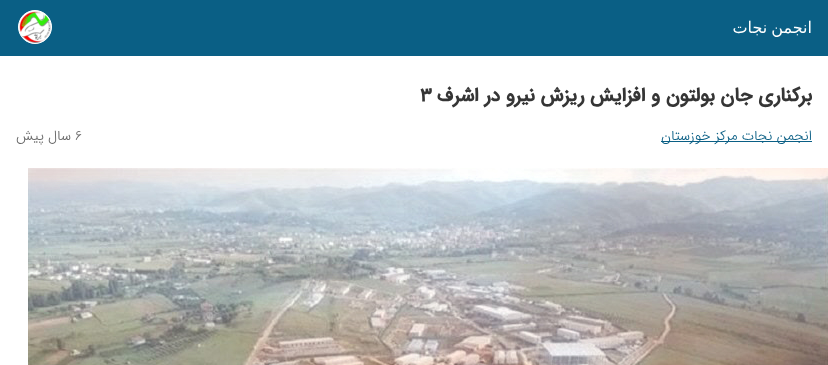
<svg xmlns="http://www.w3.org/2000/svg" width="828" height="365">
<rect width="100%" height="100%" fill="#fff"/>
<rect width="828" height="56" fill="#0a5f85"/>
<text x="812" y="33" word-spacing="-1" style="font-family:DejaVu Sans;font-size:16px;direction:rtl;fill:#fff">انجمن نجات</text>
<circle cx="35" cy="27" r="16.5" fill="#fff" stroke="#fff"/>
<image x="19" y="11" width="32" height="32" href="media/1.png"/>
<text x="812" y="101" style="font-family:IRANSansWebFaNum;font-size:19.25px;font-weight:bold;direction:rtl;fill:#353535">برکناری جان بولتون و افزایش ریزش نیرو در اشرف</text>
<text x="420" y="101" style="font-family:IRANSansWebFaNum;font-size:19.25px;font-weight:bold;fill:#353535">۳</text>
<rect x="661" y="141" width="151" height="1" fill="#0a5f85"/>
<text x="812" y="140" style="font-family:IRANSansWebFaNum;font-size:14px;font-weight:300;direction:rtl;fill:#0a5f85">انجمن نجات مرکز خوزستان</text>
<text x="75" y="140" style="font-family:IRANSansWebFaNum;font-size:14px;font-weight:300;fill:#696969">6</text>
<text x="71" y="140" style="font-family:IRANSansWebFaNum;font-size:14px;font-weight:300;direction:rtl;fill:#696969">سال پیش</text>
<image x="28" y="168" width="800" height="197" href="media/2.png"/>
</svg>
